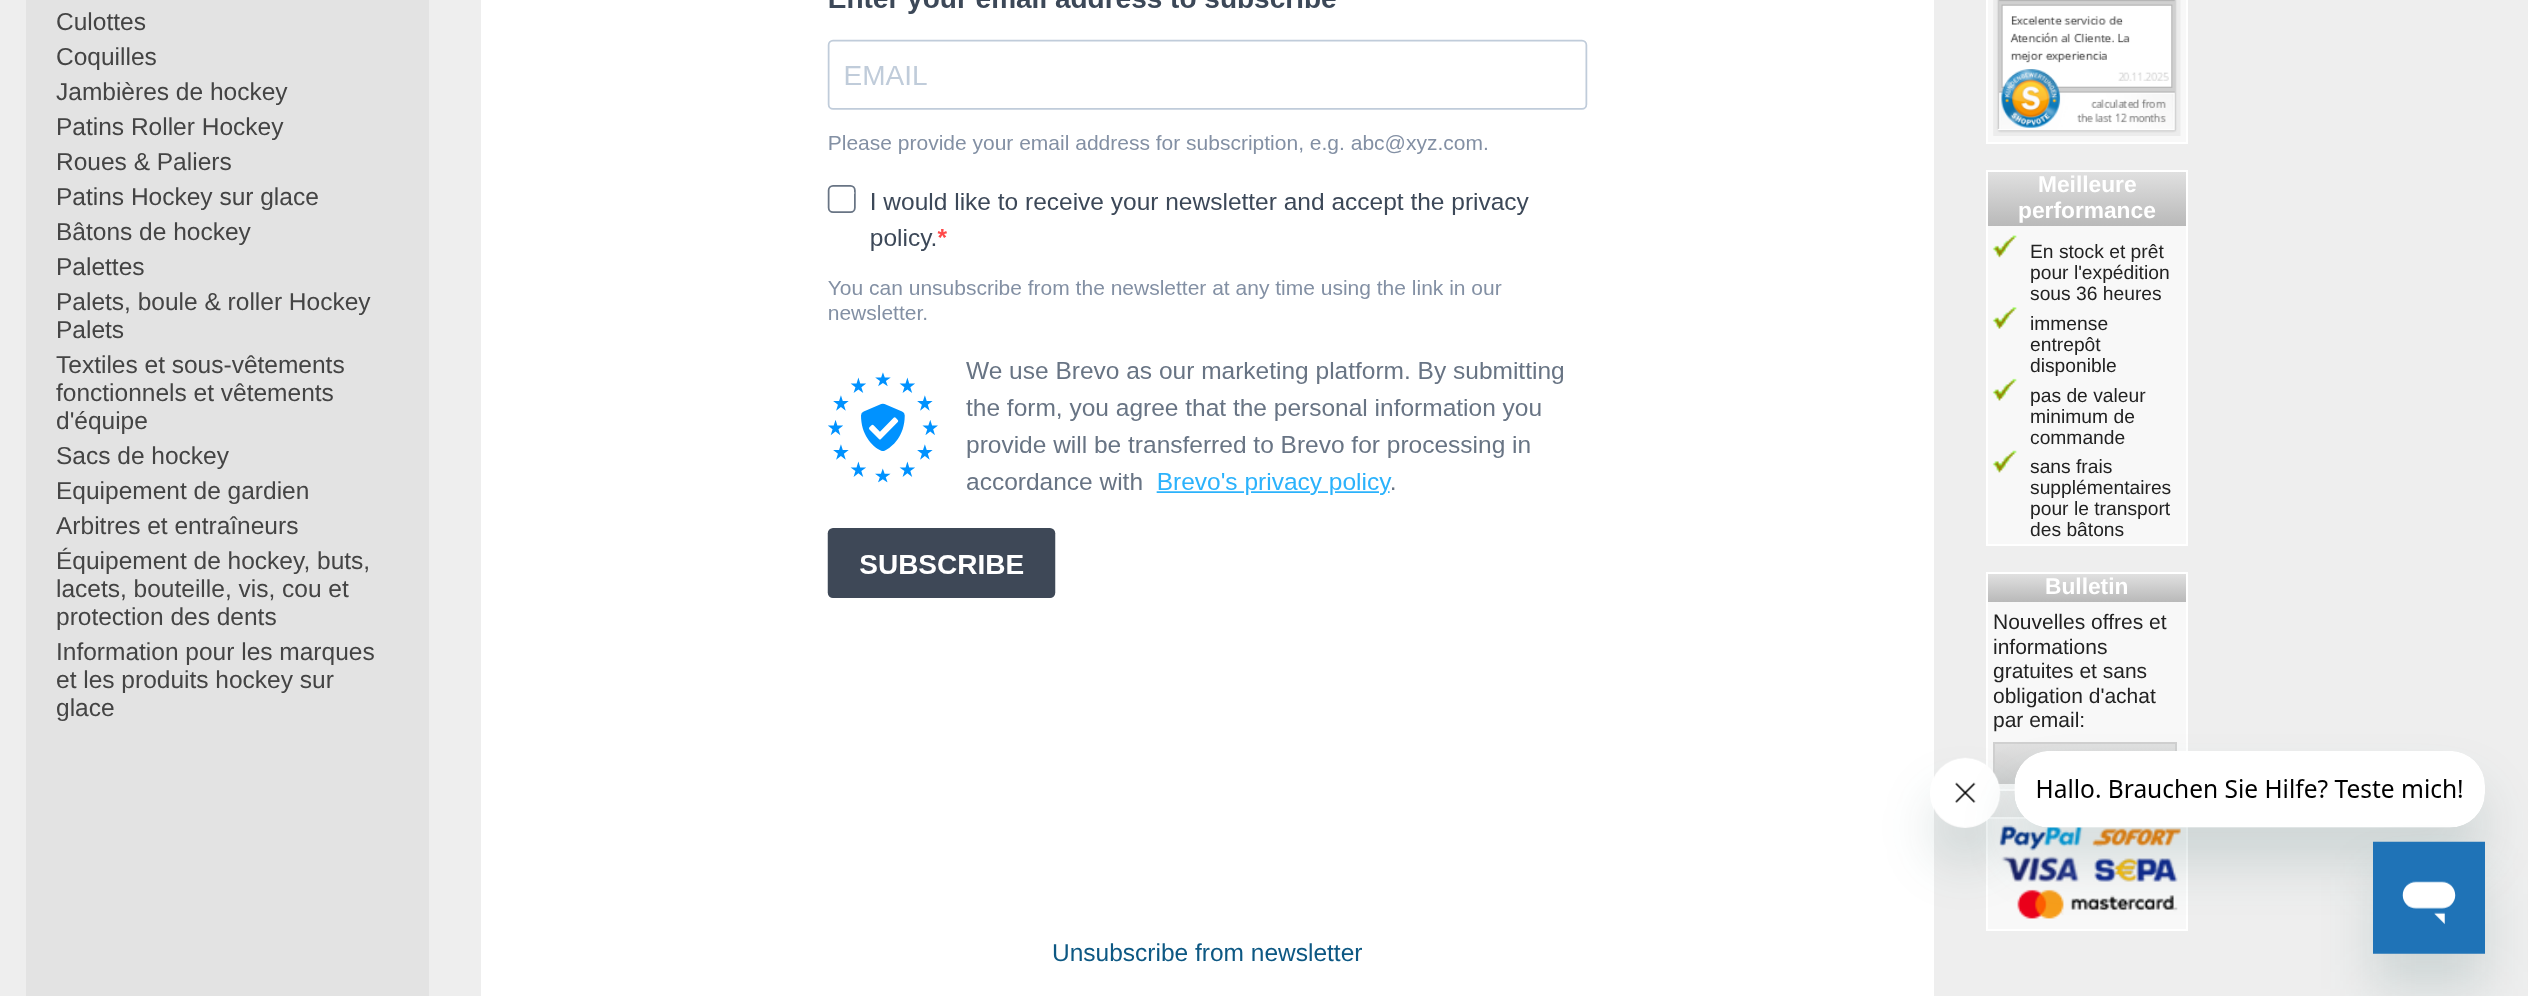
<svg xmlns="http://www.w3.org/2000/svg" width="2528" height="996">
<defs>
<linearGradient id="g1" gradientUnits="userSpaceOnUse" x1="2087" y1="172" x2="2087" y2="226"><stop offset="0" stop-color="#e0e0e0"/><stop offset="1" stop-color="#b9b9b9"/></linearGradient>
<linearGradient id="g2" gradientUnits="userSpaceOnUse" x1="2087" y1="574" x2="2087" y2="602"><stop offset="0" stop-color="#e0e0e0"/><stop offset="1" stop-color="#b9b9b9"/></linearGradient>
<linearGradient id="g3" gradientUnits="userSpaceOnUse" x1="2085" y1="744" x2="2085" y2="782"><stop offset="0" stop-color="#e0e0e0"/><stop offset="1" stop-color="#d0d0d0"/></linearGradient>
<clipPath id="clip1"><path d="M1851 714h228v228h-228zm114 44c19.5 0 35 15.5 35 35c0 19.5-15.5 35-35 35c-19.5 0-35-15.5-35-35c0-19.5 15.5-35 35-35z" clip-rule="evenodd"/></clipPath>
</defs>
<rect width="100%" height="100%" fill="#eee"/>
<rect x="26" width="403" height="996" fill="#e3e3e3"/>
<text x="56" y="30" style="font-family:Liberation Sans;font-size:24.5px;fill:#444">Culottes</text>
<text x="56" y="65" style="font-family:Liberation Sans;font-size:24.5px;fill:#444">Coquilles</text>
<text x="56" y="100" style="font-family:Liberation Sans;font-size:24.5px;fill:#444">Jambières de hockey</text>
<text x="56" y="135" style="font-family:Liberation Sans;font-size:24.5px;fill:#444">Patins Roller Hockey</text>
<text x="56" y="170" style="font-family:Liberation Sans;font-size:24.5px;fill:#444">Roues &amp; Paliers</text>
<text x="56" y="205" style="font-family:Liberation Sans;font-size:24.5px;fill:#444">Patins Hockey sur glace</text>
<text x="56" y="240" style="font-family:Liberation Sans;font-size:24.5px;fill:#444">Bâtons de hockey</text>
<text x="56" y="275" style="font-family:Liberation Sans;font-size:24.5px;fill:#444">Palettes</text>
<text x="56" y="310" style="font-family:Liberation Sans;font-size:24.5px;fill:#444">Palets, boule &amp; roller Hockey</text>
<text x="56" y="338" style="font-family:Liberation Sans;font-size:24.5px;fill:#444">Palets</text>
<text x="56" y="373" style="font-family:Liberation Sans;font-size:24.5px;fill:#444">Textiles et sous-vêtements</text>
<text x="56" y="401" style="font-family:Liberation Sans;font-size:24.5px;fill:#444">fonctionnels et vêtements</text>
<text x="56" y="429" style="font-family:Liberation Sans;font-size:24.5px;fill:#444">d'équipe</text>
<text x="56" y="464" style="font-family:Liberation Sans;font-size:24.5px;fill:#444">Sacs de hockey</text>
<text x="56" y="499" style="font-family:Liberation Sans;font-size:24.5px;fill:#444">Equipement de gardien</text>
<text x="56" y="534" style="font-family:Liberation Sans;font-size:24.5px;fill:#444">Arbitres et entraîneurs</text>
<text x="56" y="569" style="font-family:Liberation Sans;font-size:24.5px;fill:#444">Équipement de hockey, buts,</text>
<text x="56" y="597" style="font-family:Liberation Sans;font-size:24.5px;fill:#444">lacets, bouteille, vis, cou et</text>
<text x="56" y="625" style="font-family:Liberation Sans;font-size:24.5px;fill:#444">protection des dents</text>
<text x="56" y="660" style="font-family:Liberation Sans;font-size:24.5px;fill:#444">Information pour les marques</text>
<text x="56" y="688" style="font-family:Liberation Sans;font-size:24.5px;fill:#444">et les produits hockey sur</text>
<text x="56" y="716" style="font-family:Liberation Sans;font-size:24.5px;fill:#444">glace</text>
<rect x="1987" y="-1" width="200" height="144" fill="#f8f8f8" stroke="#fff" stroke-width="2"/>
<image x="1993" y="0" width="188" height="136" href="media/1.png"/>
<rect x="1988" y="226" width="198" height="318" fill="#f8f8f8"/>
<rect x="1987" y="171" width="200" height="374" fill="none" stroke="#fff" stroke-width="2"/>
<rect x="1988" y="172" width="198" height="54" fill="url(#g1)"/>
<text x="2038" y="192" style="font-family:Liberation Sans;font-size:22.75px;font-weight:bold;fill:#fff">Meilleure</text>
<text x="2018" y="218" style="font-family:Liberation Sans;font-size:22.75px;font-weight:bold;fill:#fff">performance</text>
<image x="1992" y="235" width="25" height="23" href="media/2.png"/>
<text x="2030" y="258" style="font-family:Liberation Sans;font-size:19.25px;fill:#222">En stock et prêt</text>
<text x="2030" y="279" style="font-family:Liberation Sans;font-size:19.25px;fill:#222">pour l'expédition</text>
<text x="2030" y="300" style="font-family:Liberation Sans;font-size:19.25px;fill:#222">sous 36 heures</text>
<image x="1992" y="307" width="25" height="22" href="media/3.png"/>
<text x="2030" y="330" style="font-family:Liberation Sans;font-size:19.25px;fill:#222">immense</text>
<text x="2030" y="351" style="font-family:Liberation Sans;font-size:19.25px;fill:#222">entrepôt</text>
<text x="2030" y="372" style="font-family:Liberation Sans;font-size:19.25px;fill:#222">disponible</text>
<image x="1992" y="378" width="25" height="23" href="media/4.png"/>
<text x="2030" y="402" style="font-family:Liberation Sans;font-size:19.25px;fill:#222">pas de valeur</text>
<text x="2030" y="423" style="font-family:Liberation Sans;font-size:19.25px;fill:#222">minimum de</text>
<text x="2030" y="444" style="font-family:Liberation Sans;font-size:19.25px;fill:#222">commande</text>
<image x="1992" y="450" width="25" height="23" href="media/5.png"/>
<text x="2030" y="473" style="font-family:Liberation Sans;font-size:19.25px;fill:#222">sans frais</text>
<text x="2030" y="494" style="font-family:Liberation Sans;font-size:19.25px;fill:#222">supplémentaires</text>
<text x="2030" y="515" style="font-family:Liberation Sans;font-size:19.25px;fill:#222">pour le transport</text>
<text x="2030" y="536" style="font-family:Liberation Sans;font-size:19.25px;fill:#222">des bâtons</text>
<rect x="1988" y="602" width="198" height="187" fill="#f8f8f8"/>
<rect x="1987" y="573" width="200" height="217" fill="none" stroke="#fff" stroke-width="2"/>
<rect x="1988" y="574" width="198" height="28" fill="url(#g2)"/>
<text x="2045" y="594" style="font-family:Liberation Sans;font-size:22.75px;font-weight:bold;fill:#fff">Bulletin</text>
<text x="1993" y="629" style="font-family:Liberation Sans;font-size:21px;fill:#222">Nouvelles offres et</text>
<text x="1993" y="654" style="font-family:Liberation Sans;font-size:21px;fill:#222">informations</text>
<text x="1993" y="678" style="font-family:Liberation Sans;font-size:21px;fill:#222">gratuites et sans</text>
<text x="1993" y="703" style="font-family:Liberation Sans;font-size:21px;fill:#222">obligation d'achat</text>
<text x="1993" y="727" style="font-family:Liberation Sans;font-size:21px;fill:#222">par email:</text>
<rect x="1995" y="744" width="180" height="38" fill="url(#g3)"/>
<rect x="1994" y="743" width="182" height="40" fill="none" stroke="#d0d0d0" stroke-width="2"/>
<rect x="1987" y="818" width="200" height="112" fill="#f8f8f8" stroke="#fff" stroke-width="2"/>
<image x="1999" y="825" width="182" height="94" href="media/6.png"/>
<rect x="481" width="1453" height="996" fill="#fff"/>
<image x="827" y="0" width="761" height="598" href="media/7.png"/>
<text x="1052" y="961" style="font-family:Liberation Sans;font-size:24.5px;fill:#0d5883">Unsubscribe from newsletter</text>
<g clip-path="url(#clip1)">
<rect x="1930" y="793" width="70" height="70" rx="35" fill="#17494d26" filter="blur(26px)"/>
</g>
<image x="1934" y="757" width="67" height="71" href="media/9.png"/>
<rect x="2014" y="786" width="471" height="77" rx="35" fill="#17494d26" filter="blur(26px)"/>
<image x="2014" y="751" width="471" height="77" href="media/8.png"/>
<rect x="2373" y="877" width="112" height="112" fill="#17494d26" filter="blur(26px)"/>
<image x="2373" y="841" width="112" height="113" href="media/10.png"/>
</svg>
